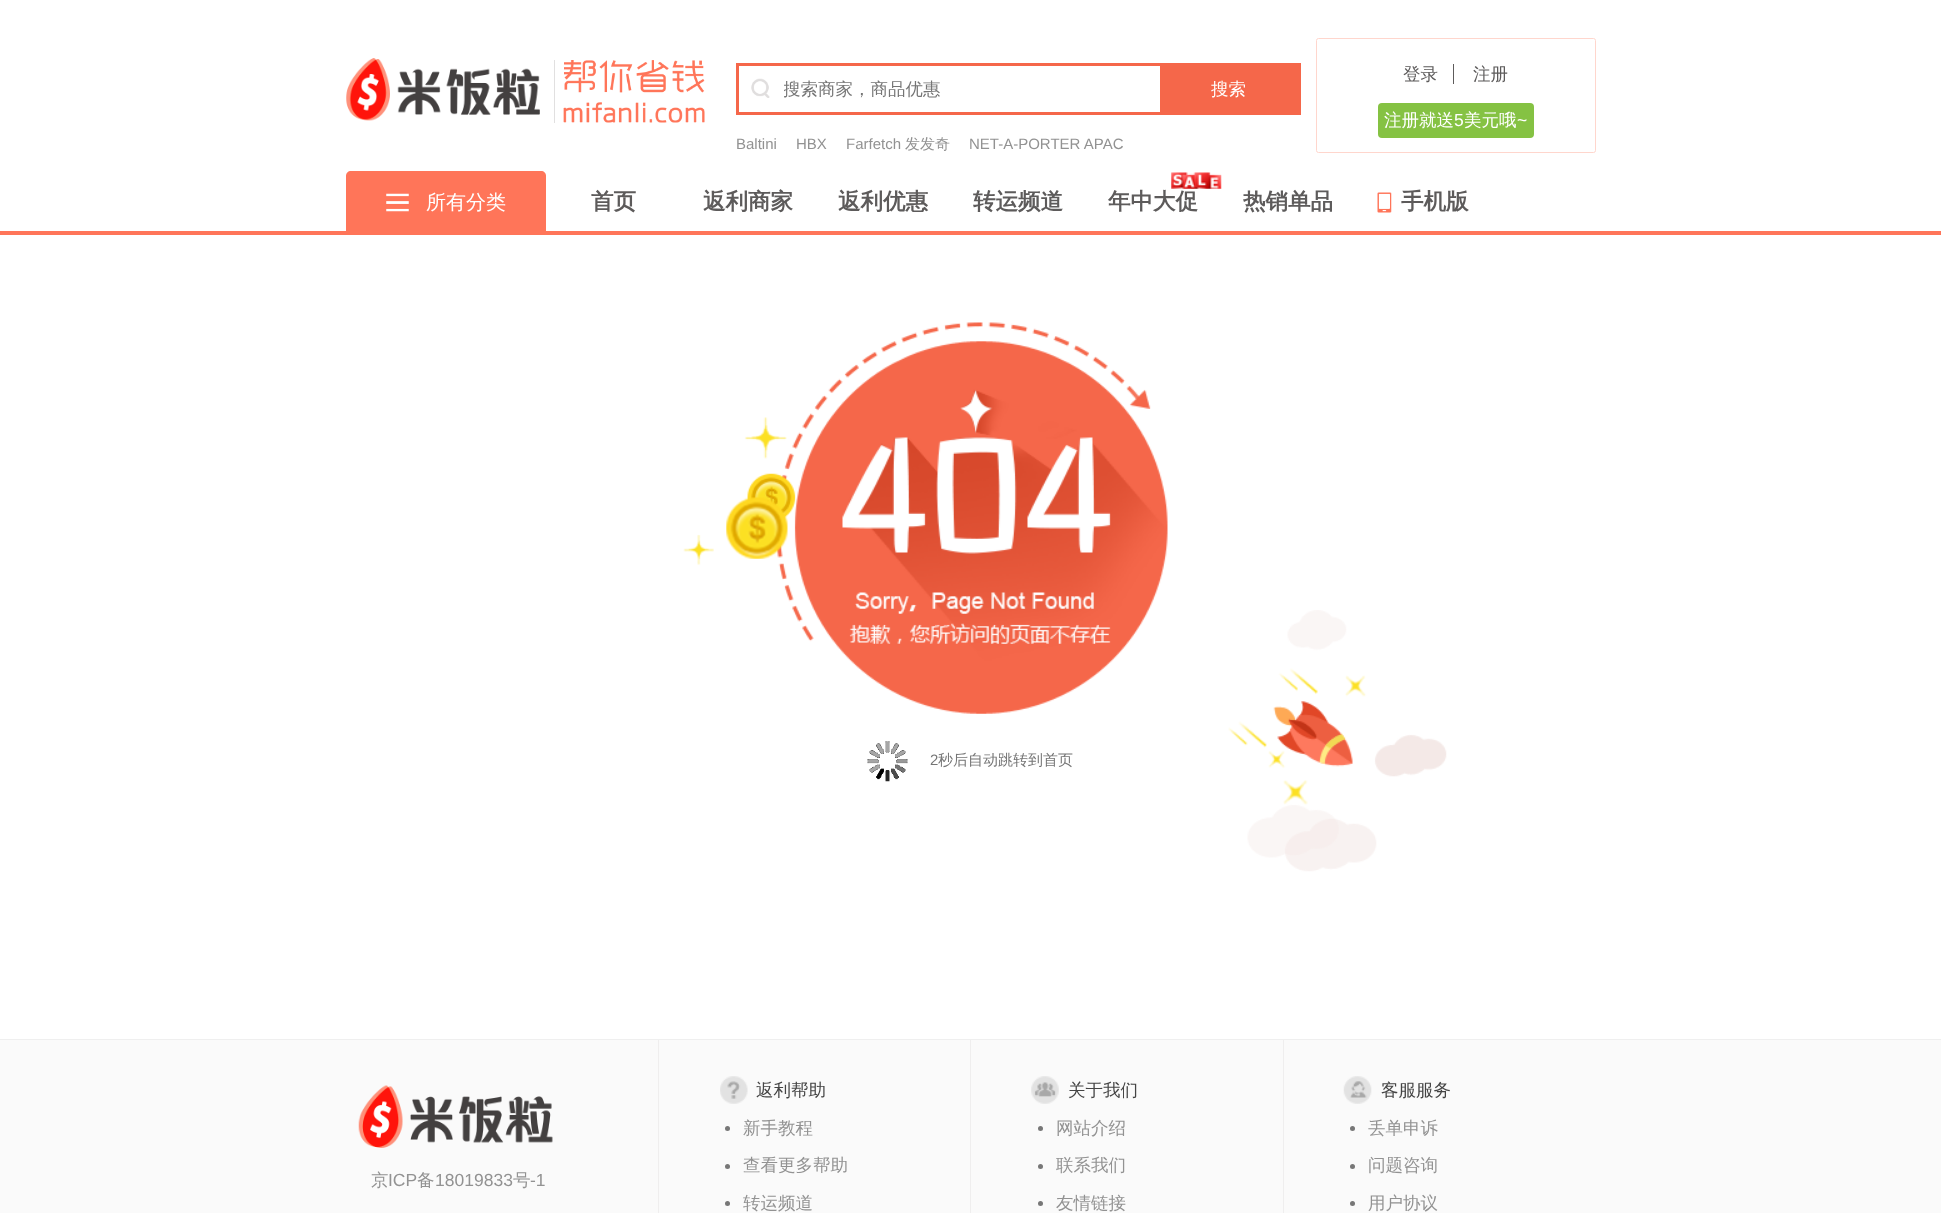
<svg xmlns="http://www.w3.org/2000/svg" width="1941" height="1213">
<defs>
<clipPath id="clip1"><rect x="784" y="79" width="472" height="22"/></clipPath>
</defs>
<rect width="100%" height="100%" fill="#fff"/>
<image x="346" y="58" width="194" height="63" href="media/1.png"/>
<image x="563" y="60" width="142" height="63" href="media/2.png"/>
<rect x="554" y="60" width="1" height="63" fill="#e1e0e0"/>
<rect x="737.5" y="64.5" width="562" height="49" fill="none" stroke="#f5674a" stroke-width="3"/>
<image x="751" y="78" width="19" height="20" href="media/3.png"/>
<g clip-path="url(#clip1)">
<text x="783" y="95" style="font-family:WenQuanYi Zen Hei;font-size:17.5px;font-weight:500;fill:#757575">搜索商家，商品优惠</text>
</g>
<rect x="1160" y="66" width="138" height="46" fill="#f5674a"/>
<text x="1211" y="95" style="font-family:WenQuanYi Zen Hei;font-size:17.5px;font-weight:500;fill:#fff">搜索</text>
<text x="736" y="149" style="font-family:Liberation Sans;font-size:15px;fill:#929292">Baltini</text>
<text x="796" y="149" style="font-family:Liberation Sans;font-size:15px;fill:#929292">HBX</text>
<text x="846" y="149" style="font-family:Liberation Sans;font-size:15px;fill:#929292">Farfetch</text>
<text x="905" y="149" style="font-family:WenQuanYi Zen Hei;font-size:15px;font-weight:500;fill:#929292">发发奇</text>
<text x="969" y="149" style="font-family:Liberation Sans;font-size:15px;fill:#929292">NET-A-PORTER APAC</text>
<rect x="1316.5" y="38.5" width="279" height="114" rx="2" fill="none" stroke="#ffd6cd"/>
<text x="1403" y="80" style="font-family:WenQuanYi Zen Hei;font-size:17.5px;font-weight:500;fill:#5d5b5b">登录</text>
<rect x="1453" y="64" width="1" height="20" fill="#5d5b5b"/>
<text x="1473" y="80" style="font-family:WenQuanYi Zen Hei;font-size:17.5px;font-weight:500;fill:#5d5b5b">注册</text>
<rect x="1378" y="103" width="156" height="35" rx="4" fill="#85c243"/>
<text x="1384" y="126" style="font-family:WenQuanYi Zen Hei;font-size:17.5px;font-weight:500;fill:#fff">注册就送</text>
<text x="1454" y="126" style="font-family:Liberation Sans;font-size:17.5px;fill:#fff">5</text>
<text x="1464" y="126" style="font-family:WenQuanYi Zen Hei;font-size:17.5px;font-weight:500;fill:#fff">美元哦</text>
<text x="1517" y="126" style="font-family:Liberation Sans;font-size:17.5px;fill:#fff">~</text>
<rect y="231" width="1941" height="4" fill="#ff7559"/>
<path d="M351 171h190c3 0 5 2 5 5v59h-200v-59c0-3 2-5 5-5z" fill="#ff7559"/>
<image x="386" y="193" width="23" height="19" href="media/4.png"/>
<text x="426" y="209" style="font-family:WenQuanYi Zen Hei;font-size:20px;font-weight:500;fill:#fff">所有分类</text>
<text x="591" y="209" style="font-family:WenQuanYi Zen Hei;font-size:22.5px;font-weight:bold;fill:#5d5b5b">首页</text>
<text x="703" y="209" style="font-family:WenQuanYi Zen Hei;font-size:22.5px;font-weight:bold;fill:#5d5b5b">返利商家</text>
<text x="838" y="209" style="font-family:WenQuanYi Zen Hei;font-size:22.5px;font-weight:bold;fill:#5d5b5b">返利优惠</text>
<text x="973" y="209" style="font-family:WenQuanYi Zen Hei;font-size:22.5px;font-weight:bold;fill:#5d5b5b">转运频道</text>
<image x="1171" y="172" width="51" height="17" href="media/5.png"/>
<text x="1108" y="209" style="font-family:WenQuanYi Zen Hei;font-size:22.5px;font-weight:bold;fill:#5d5b5b">年中大促</text>
<text x="1243" y="209" style="font-family:WenQuanYi Zen Hei;font-size:22.5px;font-weight:bold;fill:#5d5b5b">热销单品</text>
<image x="1377" y="192" width="15" height="21" href="media/6.png"/>
<text x="1401" y="209" style="font-family:WenQuanYi Zen Hei;font-size:22.5px;font-weight:bold;fill:#5d5b5b">手机版</text>
<image x="683" y="322" width="485" height="392" href="media/7.png"/>
<image x="867" y="741" width="41" height="41" href="media/8.png"/>
<text x="930" y="765" style="font-family:Liberation Sans;font-size:15px;fill:#757575">2</text>
<text x="938" y="765" style="font-family:WenQuanYi Zen Hei;font-size:15px;font-weight:500;fill:#757575">秒后自动跳转到首页</text>
<image x="1228" y="610" width="219" height="262" href="media/9.png"/>
<rect y="1040" width="1941" height="173" fill="#fafafa"/>
<rect y="1039" width="1941" height="1" fill="#efefef"/>
<rect x="658" y="1040" width="1" height="173" fill="#efeeee"/>
<image x="358" y="1085" width="195" height="63" href="media/10.png"/>
<text x="371" y="1186" style="font-family:WenQuanYi Zen Hei;font-size:17.5px;font-weight:500;fill:#929292">京</text>
<text x="388" y="1186" style="font-family:Liberation Sans;font-size:17.5px;fill:#929292">ICP</text>
<text x="417" y="1186" style="font-family:WenQuanYi Zen Hei;font-size:17.5px;font-weight:500;fill:#929292">备</text>
<text x="435" y="1186" style="font-family:Liberation Sans;font-size:17.5px;fill:#929292">18019833</text>
<text x="513" y="1186" style="font-family:WenQuanYi Zen Hei;font-size:17.5px;font-weight:500;fill:#929292">号</text>
<text x="530" y="1186" style="font-family:Liberation Sans;font-size:17.5px;fill:#929292">-1</text>
<rect x="970" y="1040" width="1" height="173" fill="#efeeee"/>
<image x="720" y="1076" width="28" height="28" href="media/11.png"/>
<text x="756" y="1096" style="font-family:WenQuanYi Zen Hei;font-size:17.5px;font-weight:500;fill:#444">返利帮助</text>
<circle cx="727.5" cy="1128.5" r="2.5" fill="#777"/>
<text x="743" y="1134" style="font-family:WenQuanYi Zen Hei;font-size:17.5px;font-weight:500;fill:#929292">新手教程</text>
<circle cx="727.5" cy="1166.5" r="2.5" fill="#777"/>
<text x="743" y="1171" style="font-family:WenQuanYi Zen Hei;font-size:17.5px;font-weight:500;fill:#929292">查看更多帮助</text>
<circle cx="727.5" cy="1203.5" r="2.5" fill="#777"/>
<text x="743" y="1209" style="font-family:WenQuanYi Zen Hei;font-size:17.5px;font-weight:500;fill:#929292">转运频道</text>
<rect x="1283" y="1040" width="1" height="173" fill="#efeeee"/>
<image x="1031" y="1076" width="28" height="28" href="media/12.png"/>
<text x="1068" y="1096" style="font-family:WenQuanYi Zen Hei;font-size:17.5px;font-weight:500;fill:#444">关于我们</text>
<circle cx="1040.5" cy="1128.5" r="2.5" fill="#777"/>
<text x="1056" y="1134" style="font-family:WenQuanYi Zen Hei;font-size:17.5px;font-weight:500;fill:#929292">网站介绍</text>
<circle cx="1040.5" cy="1166.5" r="2.5" fill="#777"/>
<text x="1056" y="1171" style="font-family:WenQuanYi Zen Hei;font-size:17.5px;font-weight:500;fill:#929292">联系我们</text>
<circle cx="1040.5" cy="1203.5" r="2.5" fill="#777"/>
<text x="1056" y="1209" style="font-family:WenQuanYi Zen Hei;font-size:17.5px;font-weight:500;fill:#929292">友情链接</text>
<image x="1343" y="1076" width="29" height="28" href="media/13.png"/>
<text x="1381" y="1096" style="font-family:WenQuanYi Zen Hei;font-size:17.5px;font-weight:500;fill:#444">客服服务</text>
<circle cx="1352.5" cy="1128.5" r="2.5" fill="#777"/>
<text x="1368" y="1134" style="font-family:WenQuanYi Zen Hei;font-size:17.5px;font-weight:500;fill:#929292">丢单申诉</text>
<circle cx="1352.5" cy="1166.5" r="2.5" fill="#777"/>
<text x="1368" y="1171" style="font-family:WenQuanYi Zen Hei;font-size:17.5px;font-weight:500;fill:#929292">问题咨询</text>
<circle cx="1352.5" cy="1203.5" r="2.5" fill="#777"/>
<text x="1368" y="1209" style="font-family:WenQuanYi Zen Hei;font-size:17.5px;font-weight:500;fill:#929292">用户协议</text>
</svg>
